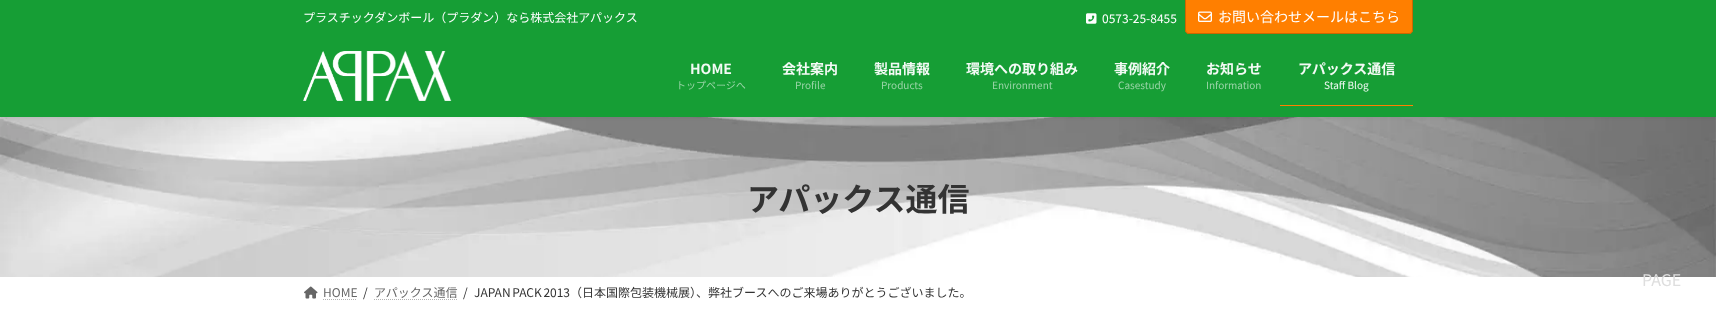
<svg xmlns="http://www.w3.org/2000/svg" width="1716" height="314">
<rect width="100%" height="100%" fill="#fff"/>
<image x="0" y="117" width="1716" height="160" href="media/4.png"/>
<rect y="-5" width="1716" height="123" fill="#0000000d" filter="blur(1.5px)"/>
<rect width="1716" height="117" fill="#169e35"/>
<text x="303" y="22" style="font-family:Noto Sans JP;font-size:12px;fill:#fff">プラスチックダンボール（プラダン）なら株式会社アパックス</text>
<image x="1086" y="13" width="11" height="11" href="media/1.png"/>
<text x="1102" y="23" style="font-family:Noto Sans JP;font-size:12px;fill:#fff">0573-25-8455</text>
<path d="M1185 0h228v30c0 2-2 4-4 4h-220c-2 0-4-2-4-4z" fill="#ff7f00"/>
<path d="M1185 0h228v30c0 2-2 4-4 4h-220c-2 0-4-2-4-4zm1 0h226v30c0 2-1 3-3 3h-220c-2 0-3-1-3-3z" fill="#c60" fill-rule="evenodd"/>
<image x="1198" y="11" width="14" height="11" href="media/2.png"/>
<text x="1218" y="22" style="font-family:Noto Sans JP;font-size:14px;fill:#fff">お問い合わせメールはこちら</text>
<image x="303" y="51" width="149" height="50" href="media/3.png"/>
<text x="690" y="74" style="font-family:Noto Sans JP;font-size:14px;font-weight:bold;fill:#f3faf5">HOME</text>
<text x="676" y="89" style="font-family:Noto Sans JP;font-size:10px;fill:#9bd5a8">トップページへ</text>
<text x="782" y="74" style="font-family:Noto Sans JP;font-size:14px;font-weight:bold;fill:#f3faf5">会社案内</text>
<text x="795" y="89" style="font-family:Noto Sans JP;font-size:10px;fill:#9bd5a8">Profile</text>
<text x="874" y="74" style="font-family:Noto Sans JP;font-size:14px;font-weight:bold;fill:#f3faf5">製品情報</text>
<text x="881" y="89" style="font-family:Noto Sans JP;font-size:10px;fill:#9bd5a8">Products</text>
<text x="966" y="74" style="font-family:Noto Sans JP;font-size:14px;font-weight:bold;fill:#f3faf5">環境への取り組み</text>
<text x="992" y="89" style="font-family:Noto Sans JP;font-size:10px;fill:#9bd5a8">Environment</text>
<text x="1114" y="74" style="font-family:Noto Sans JP;font-size:14px;font-weight:bold;fill:#f3faf5">事例紹介</text>
<text x="1118" y="89" style="font-family:Noto Sans JP;font-size:10px;fill:#9bd5a8">Casestudy</text>
<text x="1206" y="74" style="font-family:Noto Sans JP;font-size:14px;font-weight:bold;fill:#f3faf5">お知らせ</text>
<text x="1206" y="89" style="font-family:Noto Sans JP;font-size:10px;fill:#9bd5a8">Information</text>
<text x="1298" y="74" style="font-family:Noto Sans JP;font-size:14px;font-weight:bold;fill:#f3faf5">アパックス通信</text>
<text x="1324" y="89" style="font-family:Noto Sans JP;font-size:10px;fill:#f3faf5">Staff Blog</text>
<rect x="1280" y="105" width="133" height="1" fill="#ff7f00"/>
<text x="747" y="211" style="font-family:Noto Sans JP;font-size:32px;font-weight:bold;fill:#333">アパックス通信</text>
<text x="1642" y="286" style="font-family:Noto Sans JP;font-size:16px;fill:#dedede">PAGE</text>
<image x="304" y="286" width="14" height="13" href="media/5.png"/>
<text x="323" y="297" style="font-family:Noto Sans JP;font-size:12px;fill:#666">HOME</text>
<path d="M323 299.5h34" fill="none" stroke="#b3b3b3" stroke-dasharray="1 1"/>
<text x="363" y="297" style="font-family:Noto Sans JP;font-size:12px;fill:#333">/</text>
<text x="374" y="297" style="font-family:Noto Sans JP;font-size:12px;fill:#666">アパックス通信</text>
<path d="M374 299.5h83.5" fill="none" stroke="#b3b3b3" stroke-dasharray="1 1"/>
<text x="463" y="297" style="font-family:Noto Sans JP;font-size:12px;fill:#333">/</text>
<text x="474" y="297" word-spacing="-1" style="font-family:Noto Sans JP;font-size:12px;fill:#333">JAPAN PACK 2013（日本国際包装機械展）、弊社ブースへのご来場ありがとうございました。</text>
</svg>
